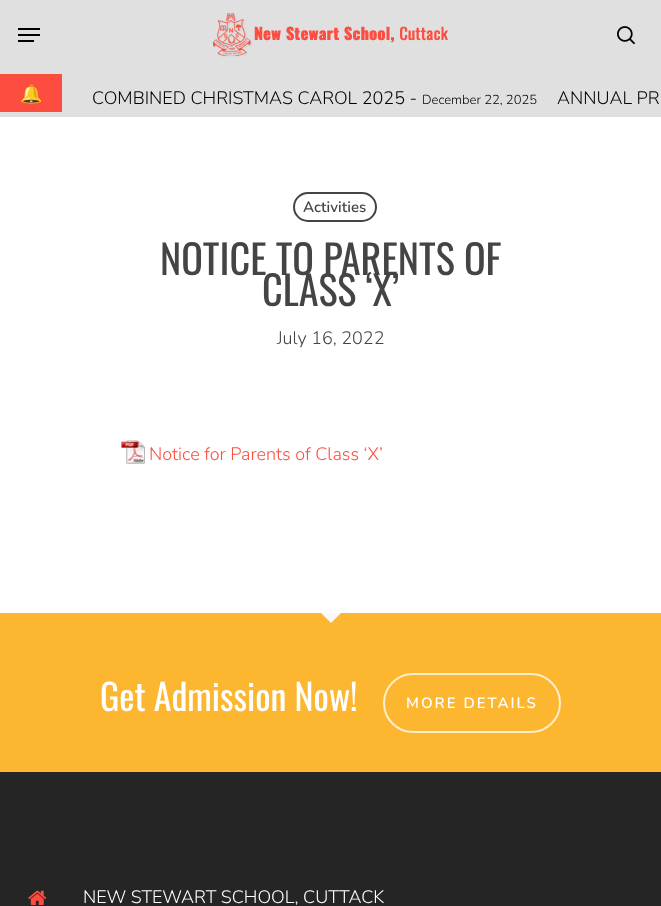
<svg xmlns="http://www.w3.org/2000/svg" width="661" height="906">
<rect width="100%" height="100%" fill="#fff"/>
<rect width="661" height="117" fill="#e0e0e0"/>
<image x="213" y="13" width="235" height="44" href="media/1.png"/>
<rect x="18" y="28" width="22" height="2" fill="#000"/>
<rect x="18" y="40" width="16" height="2" fill="#000"/>
<rect x="18" y="34" width="22" height="2" fill="#000"/>
<image x="617" y="26" width="18" height="19" href="media/2.png"/>
<rect y="74" width="62" height="38" fill="#fd4d40"/>
<text x="20" y="100" style="font-family:Noto Color Emoji;font-size:18px;fill:#fff">🔔</text>
<text x="92" y="104" style="font-family:Nunito;font-size:18px;font-weight:300;fill:#000">COMBINED CHRISTMAS CAROL 2025 -</text>
<text x="422" y="104" style="font-family:Nunito;font-size:13px;font-weight:300;fill:#000">December 22, 2025</text>
<text x="557" y="104" style="font-family:Nunito;font-size:18px;font-weight:300;fill:#000">ANNUAL PR</text>
<rect x="294" y="193" width="82" height="28" rx="14" fill="none" stroke="#444" stroke-width="2"/>
<text x="303" y="212" style="font-family:Nunito;font-size:15px;font-weight:600;fill:#444">Activities</text>
<text x="160" y="275" style="font-family:Oswald;font-size:40.25px;fill:#444">NOTICE TO PARENTS OF</text>
<text x="262" y="306" style="font-family:Oswald;font-size:40.25px;fill:#444">CLASS ‘X’</text>
<text x="277" y="344" style="font-family:Nunito;font-size:18px;font-weight:300;fill:#444">July 16, 2022</text>
<image x="121" y="440" width="24" height="24" href="media/3.png"/>
<text x="149" y="460" style="font-family:Nunito;font-size:18px;font-weight:300;fill:#fd4d40">Notice for Parents of Class ‘X’</text>
<rect y="772" width="661" height="134" fill="#252525"/>
<rect y="613" width="661" height="159" fill="#fdb62f"/>
<path d="M321 613h20l-10 10z" fill="#f8f8f8"/>
<text x="100" y="711" style="font-family:Oswald;font-size:36px;fill:#fff">Get Admission Now!</text>
<rect x="384" y="674" width="176" height="58" rx="29" fill="none" stroke="#ffedcb" stroke-width="2"/>
<text x="406" y="708" style="font-family:Nunito;font-size:15px;font-weight:600;letter-spacing:2px;fill:#fff">MORE DETAILS</text>
<image x="28" y="890" width="19" height="15" href="media/4.png"/>
<text x="83" y="903" style="font-family:Nunito;font-size:18px;font-weight:300;fill:#fff">NEW STEWART SCHOOL, CUTTACK</text>
</svg>
